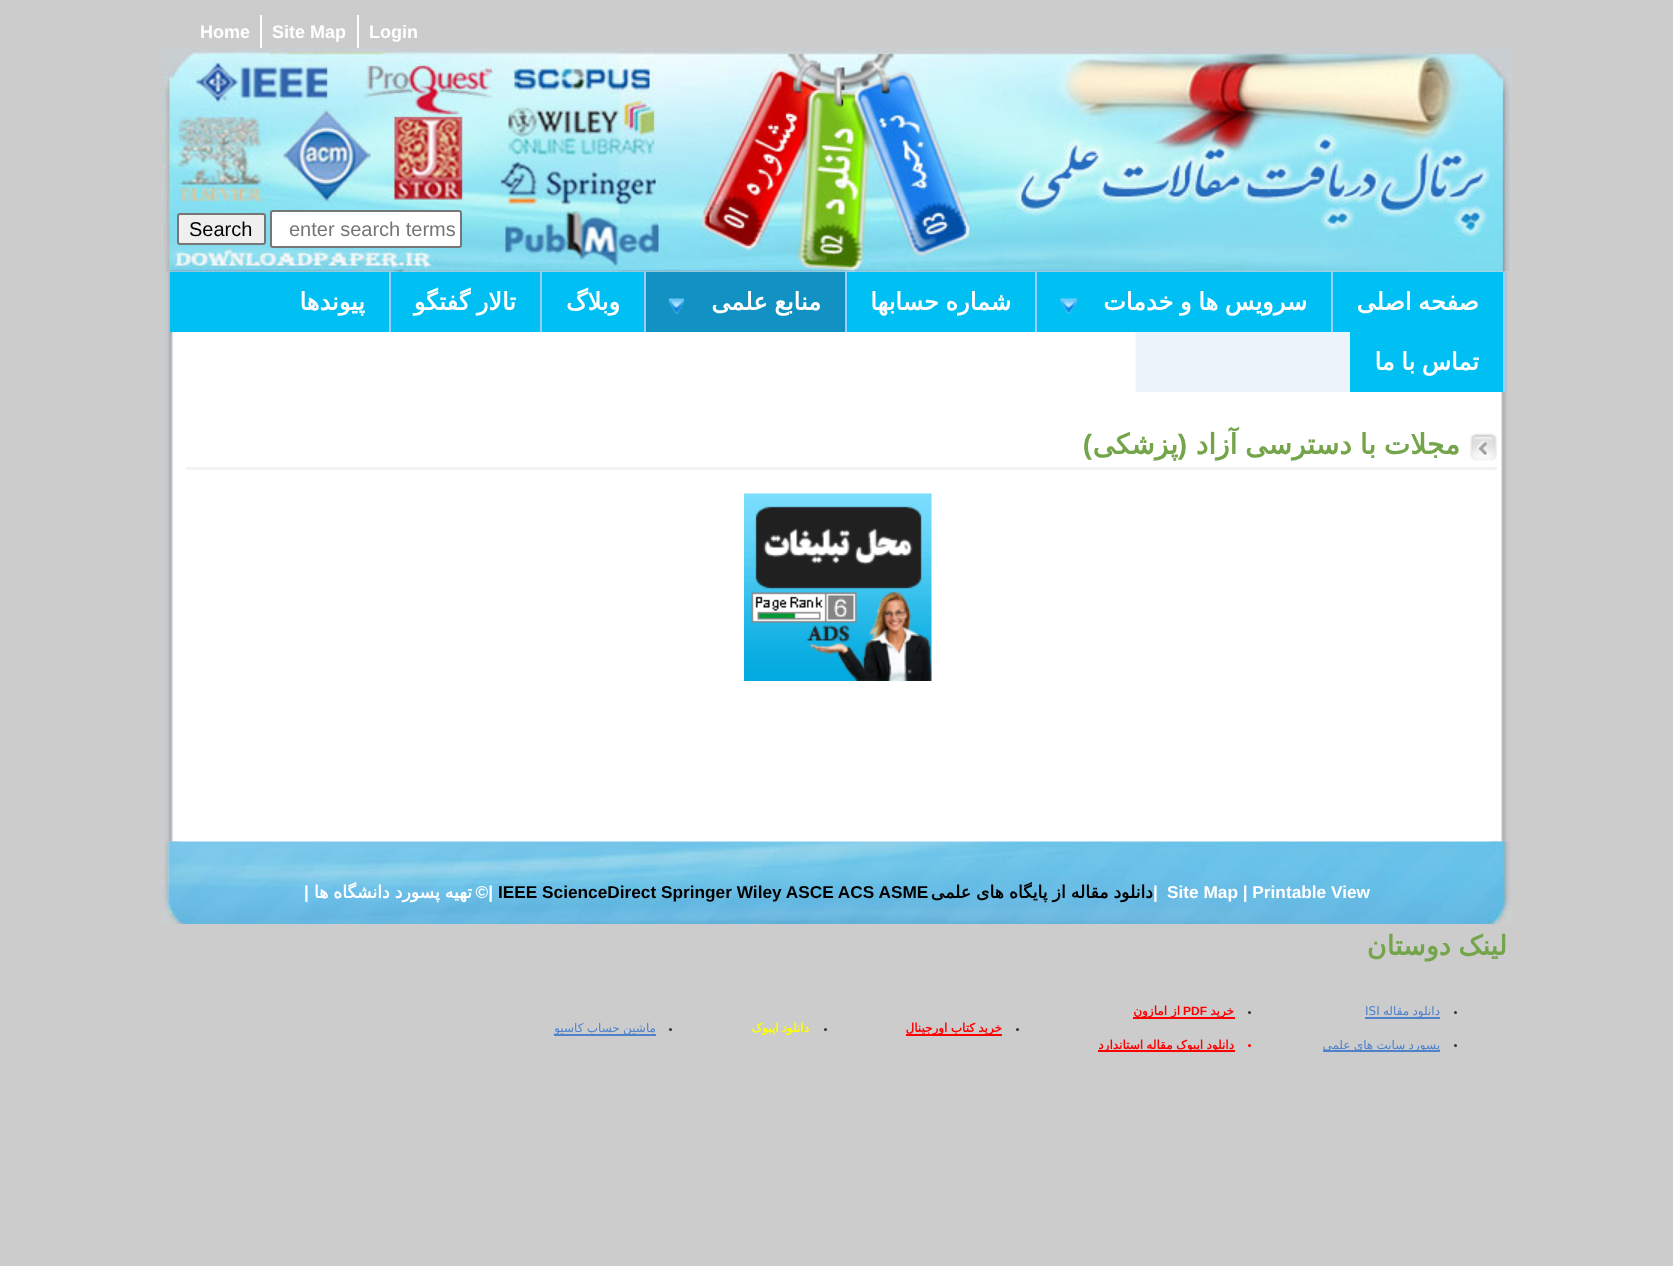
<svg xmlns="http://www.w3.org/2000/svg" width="1673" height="1266">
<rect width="100%" height="100%" fill="#ccc"/>
<rect x="357" y="15" width="2" height="33" fill="#fff"/>
<text x="369" y="38" style="font-family:Liberation Sans;font-size:18px;font-weight:bold;fill:#fff">Login</text>
<rect x="260" y="15" width="2" height="33" fill="#fff"/>
<text x="272" y="38" style="font-family:Liberation Sans;font-size:18px;font-weight:bold;fill:#fff">Site Map</text>
<text x="200" y="38" style="font-family:Liberation Sans;font-size:18px;font-weight:bold;fill:#fff">Home</text>
<image x="162" y="272" width="1346" height="570" href="media/1.png"/>
<image x="162" y="48" width="1350" height="224" href="media/2.png"/>
<rect x="271" y="211" width="190" height="36" rx="2" fill="#fff" stroke="#767676" stroke-width="2"/>
<text x="289" y="236" style="font-family:Liberation Sans;font-size:20px;fill:#757575">enter search terms</text>
<rect x="178" y="214" width="87" height="30" rx="2" fill="#efefef" stroke="#767676" stroke-width="2"/>
<text x="189" y="236" style="font-family:Liberation Sans;font-size:20px;fill:#000">Search</text>
<rect x="170" y="272" width="219" height="60" fill="#00bff3"/>
<rect x="1333" y="272" width="170" height="60" fill="#00bff3"/>
<rect x="1503" y="272" width="2" height="120" fill="#9cf"/>
<text x="1479" y="310" word-spacing="-1" style="font-family:DejaVu Sans;font-size:24px;font-weight:bold;direction:rtl;fill:#fff">صفحه اصلی</text>
<rect x="1037" y="272" width="294" height="60" fill="#00bff3"/>
<rect x="1331" y="272" width="2" height="60" fill="#9cf"/>
<text x="1307" y="310" word-spacing="-1" style="font-family:DejaVu Sans;font-size:24px;font-weight:bold;direction:rtl;fill:#fff">سرویس ها و خدمات</text>
<image x="1060" y="298" width="17" height="16" href="media/3.png"/>
<rect x="847" y="272" width="188" height="60" fill="#00bff3"/>
<rect x="1035" y="272" width="2" height="60" fill="#9cf"/>
<text x="1011" y="310" word-spacing="-1" style="font-family:DejaVu Sans;font-size:24px;font-weight:bold;direction:rtl;fill:#fff">شماره حسابها</text>
<rect x="646" y="272" width="199" height="60" fill="#1292c2"/>
<rect x="845" y="272" width="2" height="60" fill="#9cf"/>
<text x="821" y="310" word-spacing="-1" style="font-family:DejaVu Sans;font-size:24px;font-weight:bold;direction:rtl;fill:#fff">منابع علمی</text>
<image x="669" y="298" width="15" height="16" href="media/4.png"/>
<rect x="542" y="272" width="102" height="60" fill="#00bff3"/>
<rect x="644" y="272" width="2" height="60" fill="#9cf"/>
<text x="620" y="310" style="font-family:DejaVu Sans;font-size:24px;font-weight:bold;direction:rtl;fill:#fff">وبلاگ</text>
<rect x="391" y="272" width="149" height="60" fill="#00bff3"/>
<rect x="540" y="272" width="2" height="60" fill="#9cf"/>
<text x="516" y="310" word-spacing="-1" style="font-family:DejaVu Sans;font-size:24px;font-weight:bold;direction:rtl;fill:#fff">تالار گفتگو</text>
<rect x="389" y="272" width="2" height="60" fill="#9cf"/>
<text x="365" y="310" style="font-family:DejaVu Sans;font-size:24px;font-weight:bold;direction:rtl;fill:#fff">پیوندها</text>
<rect x="1350" y="332" width="153" height="60" fill="#00bff3"/>
<text x="1479" y="370" word-spacing="-1" style="font-family:DejaVu Sans;font-size:24px;font-weight:bold;direction:rtl;fill:#fff">تماس با ما</text>
<rect x="179" y="392" width="1311" height="450" fill="#fff"/>
<image x="1470" y="433" width="27" height="28" href="media/5.png"/>
<rect x="186" y="467" width="1311" height="3" fill="#f2f2f2"/>
<text x="1460" y="454" word-spacing="-1" style="font-family:DejaVu Sans;font-size:28px;font-weight:bold;direction:rtl;fill:#75a54b">مجلات با دسترسی آزاد</text>
<text x="1187" y="454" style="font-family:Liberation Sans;font-size:28px;font-weight:bold;direction:rtl;fill:#75a54b">(</text>
<text x="1178" y="454" style="font-family:DejaVu Sans;font-size:28px;font-weight:bold;direction:rtl;fill:#75a54b">پزشکی</text>
<text x="1092" y="454" style="font-family:Liberation Sans;font-size:28px;font-weight:bold;direction:rtl;fill:#75a54b">)</text>
<image x="744" y="493" width="188" height="188" href="media/6.png"/>
<image x="162" y="841" width="1350" height="83" href="media/7.png"/>
<text x="1153" y="898" style="font-family:Liberation Sans;font-size:17.25px;font-weight:bold;fill:#fff">|</text>
<text x="1153" y="898" word-spacing="-0.5" style="font-family:DejaVu Sans;font-size:17.25px;font-weight:bold;direction:rtl;fill:#000">دانلود مقاله از پایگاه های علمی</text>
<text x="498" y="898" style="font-family:Liberation Sans;font-size:17.25px;font-weight:bold;fill:#000">IEEE ScienceDirect Springer Wiley ASCE ACS ASME</text>
<text x="493" y="898" style="font-family:Liberation Sans;font-size:17.25px;font-weight:bold;direction:rtl;fill:#fff">|©</text>
<text x="472" y="898" word-spacing="-0.5" style="font-family:DejaVu Sans;font-size:17.25px;font-weight:bold;direction:rtl;fill:#fff">تهیه پسورد دانشگاه ها</text>
<text x="304" y="898" style="font-family:Liberation Sans;font-size:17.25px;font-weight:bold;fill:#fff">|</text>
<text x="1167" y="898" style="font-family:Liberation Sans;font-size:17.25px;font-weight:bold;fill:#fff">Site Map | Printable View</text>
<text x="1507" y="955" word-spacing="-1" style="font-family:DejaVu Sans;font-size:27px;font-weight:bold;direction:rtl;fill:#75a54b">لینک دوستان</text>
<circle cx="1455.5" cy="1012.5" r="1.5" fill="#333"/>
<rect x="1365" y="1017" width="75" height="2" fill="#4f82cb"/>
<text x="1440" y="1015" word-spacing="-0.5" style="font-family:DejaVu Sans;font-size:12px;direction:rtl;fill:#4f82cb">دانلود مقاله</text>
<text x="1365" y="1015" style="font-family:DejaVu Sans;font-size:12px;fill:#4f82cb">ISI</text>
<circle cx="1455.5" cy="1045.5" r="1.5" fill="#333"/>
<rect x="1323" y="1050" width="117" height="2" fill="#4f82cb"/>
<text x="1440" y="1049" word-spacing="-0.5" style="font-family:DejaVu Sans;font-size:12px;direction:rtl;fill:#4f82cb">پسورد سایت های علمی</text>
<circle cx="1249.5" cy="1012.5" r="1.5" fill="#333"/>
<rect x="1133" y="1017" width="102" height="2" fill="#f00"/>
<text x="1234" y="1015" style="font-family:DejaVu Sans;font-size:12px;font-weight:bold;direction:rtl;fill:#f00">خرید</text>
<text x="1183" y="1015" style="font-family:Liberation Sans;font-size:12px;font-weight:bold;fill:#f00">PDF</text>
<text x="1180" y="1015" style="font-family:DejaVu Sans;font-size:12px;font-weight:bold;direction:rtl;fill:#f00">از امازون</text>
<circle cx="1249.5" cy="1045.5" r="1.5" fill="#f00"/>
<rect x="1098" y="1050" width="137" height="2" fill="#f00"/>
<text x="1234" y="1049" word-spacing="-0.5" style="font-family:DejaVu Sans;font-size:12px;font-weight:bold;direction:rtl;fill:#f00">دانلود ایبوک مقاله استاندارد</text>
<circle cx="1017.5" cy="1029.5" r="1.5" fill="#333"/>
<rect x="906" y="1034" width="96" height="2" fill="#f00"/>
<text x="1002" y="1032" word-spacing="-0.5" style="font-family:DejaVu Sans;font-size:12px;font-weight:bold;direction:rtl;fill:#f00">خرید کتاب اورجینال</text>
<circle cx="825.5" cy="1029.5" r="1.5" fill="#333"/>
<text x="809" y="1032" word-spacing="-1" style="font-family:DejaVu Sans;font-size:12px;font-weight:bold;direction:rtl;fill:#ff0">دانلود ایبوک</text>
<circle cx="670.5" cy="1029.5" r="1.5" fill="#333"/>
<rect x="554" y="1034" width="102" height="2" fill="#4f82cb"/>
<text x="656" y="1032" word-spacing="-0.5" style="font-family:DejaVu Sans;font-size:12px;direction:rtl;fill:#4f82cb">ماشین حساب کاسیو</text>
</svg>
